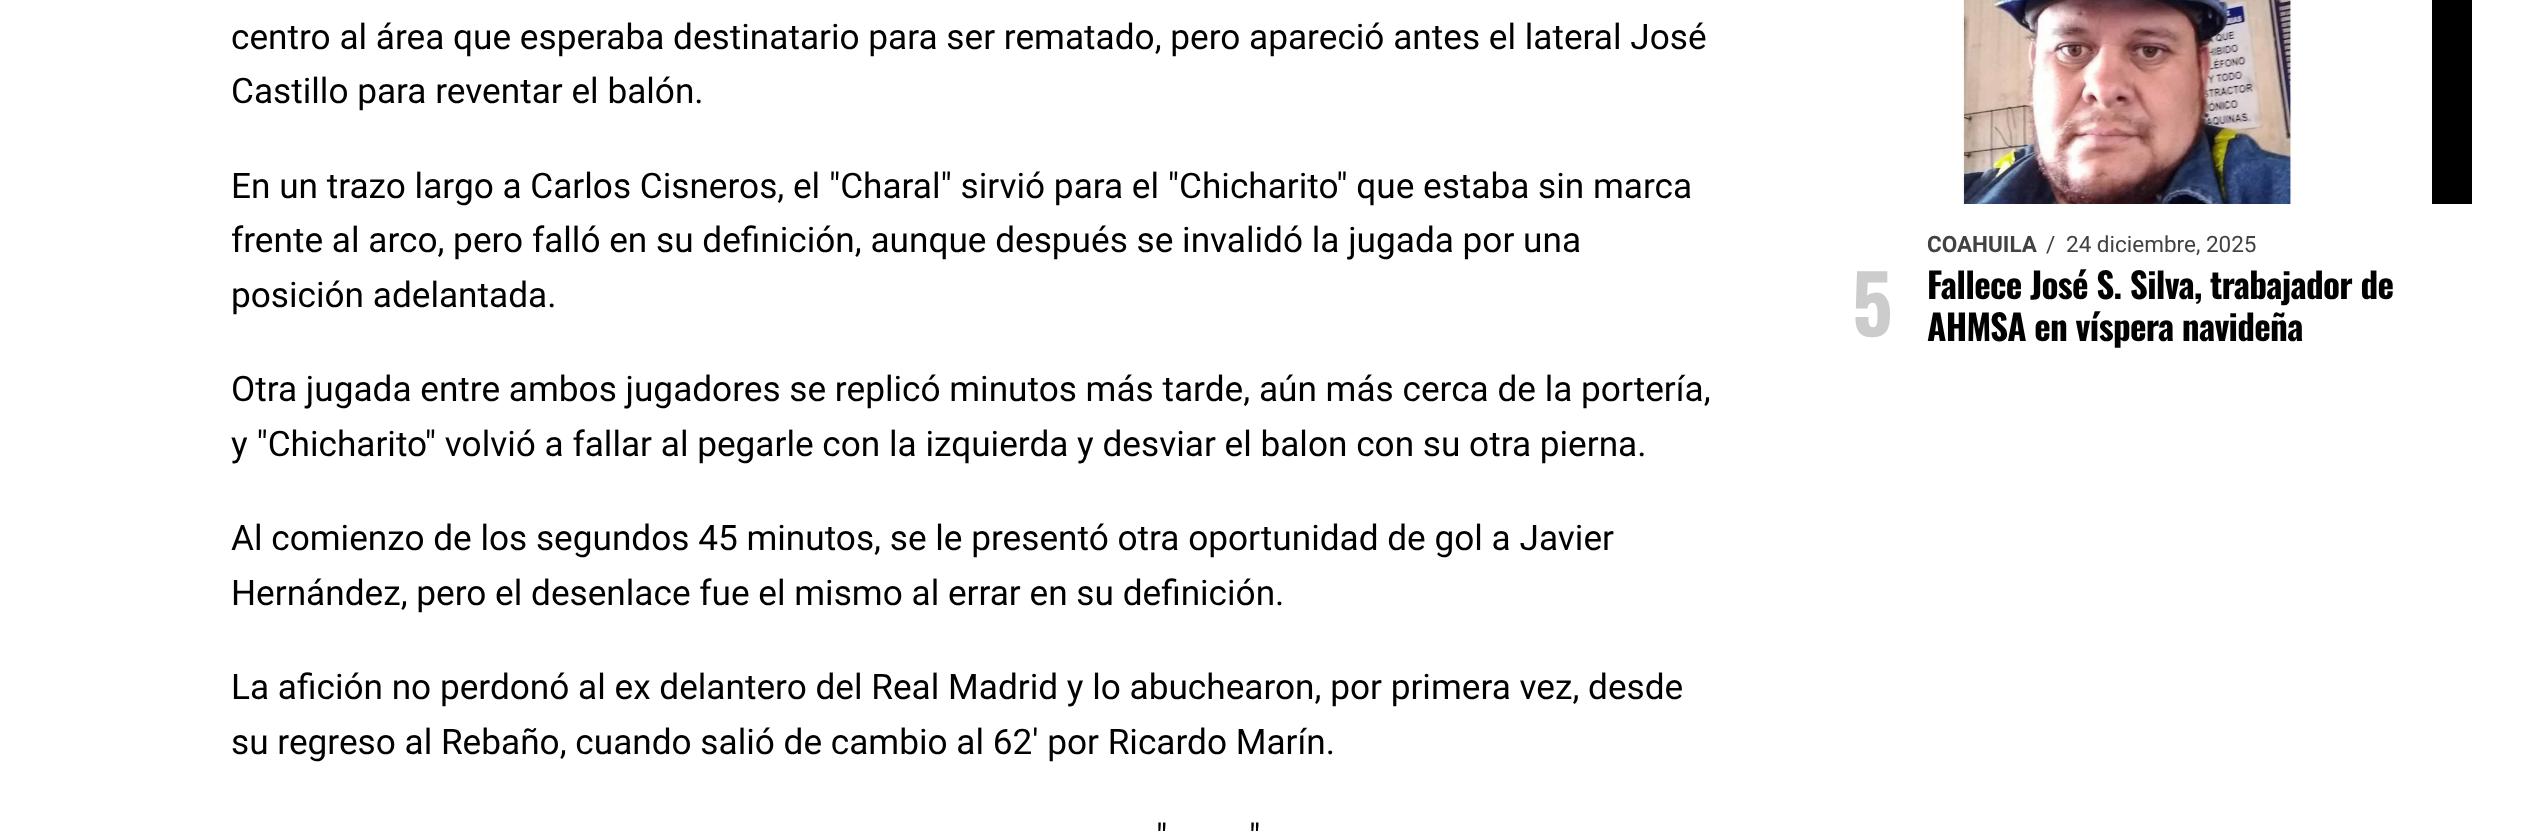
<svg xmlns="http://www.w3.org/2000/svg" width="2542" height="836">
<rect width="100%" height="100%" fill="#fff"/>
<text x="231" y="49" style="font-family:Roboto;font-size:35.2px;fill:#000">centro al área que esperaba destinatario para ser rematado, pero apareció antes el lateral José</text>
<text x="231" y="103" style="font-family:Roboto;font-size:35.2px;fill:#000">Castillo para reventar el balón.</text>
<text x="231" y="198" style="font-family:Roboto;font-size:35.2px;fill:#000">En un trazo largo a Carlos Cisneros, el "Charal" sirvió para el "Chicharito" que estaba sin marca</text>
<text x="231" y="252" style="font-family:Roboto;font-size:35.2px;fill:#000">frente al arco, pero falló en su definición, aunque después se invalidó la jugada por una</text>
<text x="231" y="307" style="font-family:Roboto;font-size:35.2px;fill:#000">posición adelantada.</text>
<text x="231" y="401" style="font-family:Roboto;font-size:35.2px;fill:#000">Otra jugada entre ambos jugadores se replicó minutos más tarde, aún más cerca de la portería,</text>
<text x="231" y="456" style="font-family:Roboto;font-size:35.2px;fill:#000">y "Chicharito" volvió a fallar al pegarle con la izquierda y desviar el balon con su otra pierna.</text>
<text x="231" y="550" style="font-family:Roboto;font-size:35.2px;fill:#000">Al comienzo de los segundos 45 minutos, se le presentó otra oportunidad de gol a Javier</text>
<text x="231" y="605" style="font-family:Roboto;font-size:35.2px;fill:#000">Hernández, pero el desenlace fue el mismo al errar en su definición.</text>
<text x="231" y="699" style="font-family:Roboto;font-size:35.2px;fill:#000">La afición no perdonó al ex delantero del Real Madrid y lo abuchearon, por primera vez, desde</text>
<text x="231" y="754" style="font-family:Roboto;font-size:35.2px;fill:#000">su regreso al Rebaño, cuando salió de cambio al 62' por Ricardo Marín.</text>
<text x="1156" y="849" style="font-family:Roboto;font-size:35.2px;fill:#000">"</text>
<text x="1249" y="849" style="font-family:Roboto;font-size:35.2px;fill:#000">"</text>
<rect x="2432" width="40" height="204" fill="#000"/>
<image x="1832" y="0" width="600" height="204" href="media/1.png"/>
<text x="1927" y="252" style="font-family:Roboto;font-size:22.5px;font-weight:bold;fill:#424242">COAHUILA</text>
<text x="2046" y="252" style="font-family:Roboto;font-size:22.5px;fill:#424242">/</text>
<text x="2066" y="252" style="font-family:Roboto;font-size:22.5px;fill:#424242">24 diciembre, 2025</text>
<text x="1852" y="336" style="font-family:Oswald;font-size:80px;font-weight:bold;fill:#ccc">5</text>
<text x="1927" y="299" style="font-family:Oswald;font-size:35.2px;font-weight:bold;letter-spacing:-0.7px;fill:#000">Fallece José S. Silva, trabajador de</text>
<text x="1927" y="341" style="font-family:Oswald;font-size:35.2px;font-weight:bold;letter-spacing:-0.7px;fill:#000">AHMSA en víspera navideña</text>
</svg>
